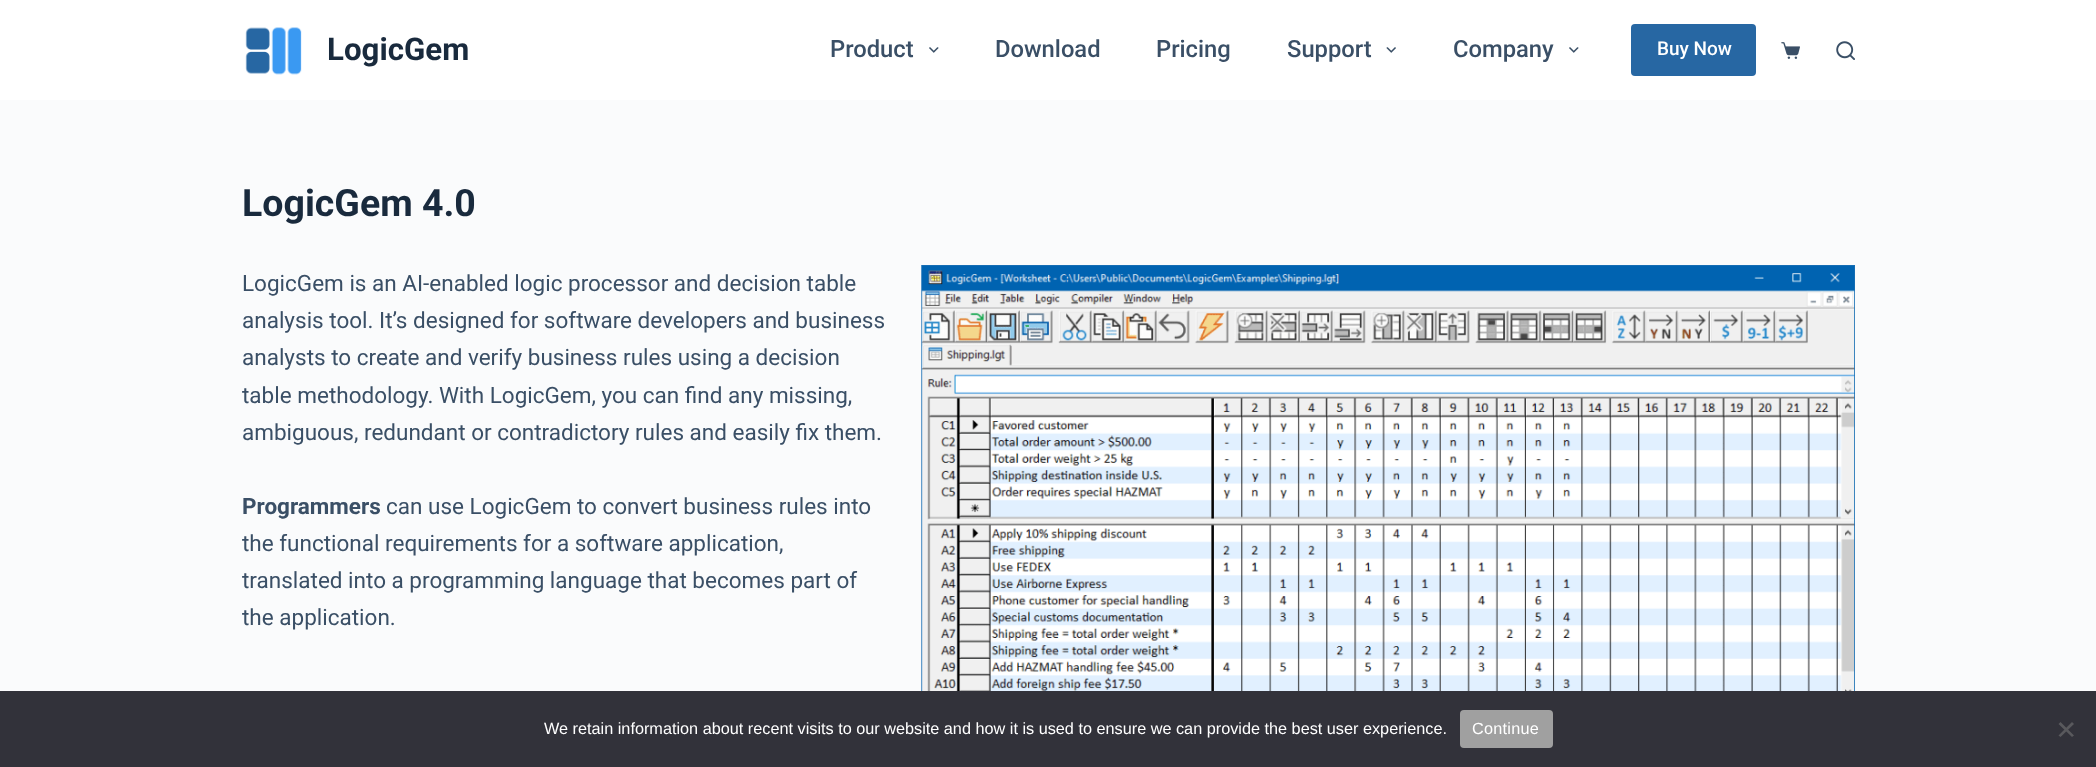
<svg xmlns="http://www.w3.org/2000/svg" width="2096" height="767">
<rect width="100%" height="100%" fill="#fafbfc"/>
<rect width="2096" height="100" fill="#fff"/>
<image x="245" y="27" width="57" height="48" href="media/1.png"/>
<text x="327" y="60" style="font-family:Roboto;font-size:31.25px;font-weight:bold;fill:#192a3d">LogicGem</text>
<text x="830" y="57" style="font-family:Roboto;font-size:23.75px;font-weight:500;fill:#3a4f66">Product</text>
<image x="929" y="47" width="10" height="6" href="media/2.png"/>
<text x="995" y="57" style="font-family:Roboto;font-size:23.75px;font-weight:500;fill:#3a4f66">Download</text>
<text x="1156" y="57" style="font-family:Roboto;font-size:23.75px;font-weight:500;fill:#3a4f66">Pricing</text>
<text x="1287" y="57" style="font-family:Roboto;font-size:23.75px;font-weight:500;fill:#3a4f66">Support</text>
<image x="1386" y="47" width="10" height="6" href="media/3.png"/>
<text x="1453" y="57" style="font-family:Roboto;font-size:23.75px;font-weight:500;fill:#3a4f66">Company</text>
<image x="1569" y="47" width="10" height="6" href="media/2.png"/>
<rect x="1631" y="24" width="125" height="52" rx="4" fill="#2767a3"/>
<text x="1657" y="55" style="font-family:Roboto;font-size:19px;font-weight:500;fill:#fff">Buy Now</text>
<image x="1781" y="42" width="19" height="17" href="media/4.png"/>
<image x="1836" y="41" width="19" height="19" href="media/5.png"/>
<text x="242" y="216" style="font-family:Roboto;font-size:37.5px;font-weight:bold;fill:#192a3d">LogicGem 4.0</text>
<text x="242" y="291" style="font-family:Roboto;font-size:22.5px;fill:#3a4f66">LogicGem is an AI-enabled logic processor and decision table</text>
<text x="242" y="328" style="font-family:Roboto;font-size:22.5px;fill:#3a4f66">analysis tool. It’s designed for software developers and business</text>
<text x="242" y="365" style="font-family:Roboto;font-size:22.5px;fill:#3a4f66">analysts to create and verify business rules using a decision</text>
<text x="242" y="403" style="font-family:Roboto;font-size:22.5px;fill:#3a4f66">table methodology. With LogicGem, you can find any missing,</text>
<text x="242" y="440" style="font-family:Roboto;font-size:22.5px;fill:#3a4f66">ambiguous, redundant or contradictory rules and easily fix them.</text>
<text x="242" y="514" style="font-family:Roboto;font-size:22.5px;font-weight:bold;fill:#3a4f66">Programmers</text>
<text x="386" y="514" style="font-family:Roboto;font-size:22.5px;fill:#3a4f66">can use LogicGem to convert business rules into</text>
<text x="242" y="551" style="font-family:Roboto;font-size:22.5px;fill:#3a4f66">the functional requirements for a software application,</text>
<text x="242" y="588" style="font-family:Roboto;font-size:22.5px;fill:#3a4f66">translated into a programming language that becomes part of</text>
<text x="242" y="625" style="font-family:Roboto;font-size:22.5px;fill:#3a4f66">the application.</text>
<image x="921" y="265" width="934" height="426" href="media/6.png"/>
<rect y="691" width="2096" height="76" fill="#32323a"/>
<text x="544" y="734" style="font-family:Liberation Sans;font-size:16.25px;fill:#fff">We retain information about recent visits to our website and how it is used to ensure we can provide the best user experience.</text>
<rect x="1460" y="710" width="93" height="38" rx="4" fill="#a0a0a0"/>
<text x="1472" y="734" style="font-family:Liberation Sans;font-size:16.25px;letter-spacing:0.25px;fill:#fff">Continue</text>
<path d="M2072 722l2 2l-13.5 13l-2-1.5z" fill="#59595d"/>
<path d="M2058.5 724l2-2l13.5 13.5l-2 1.5z" fill="#59595d"/>
</svg>
